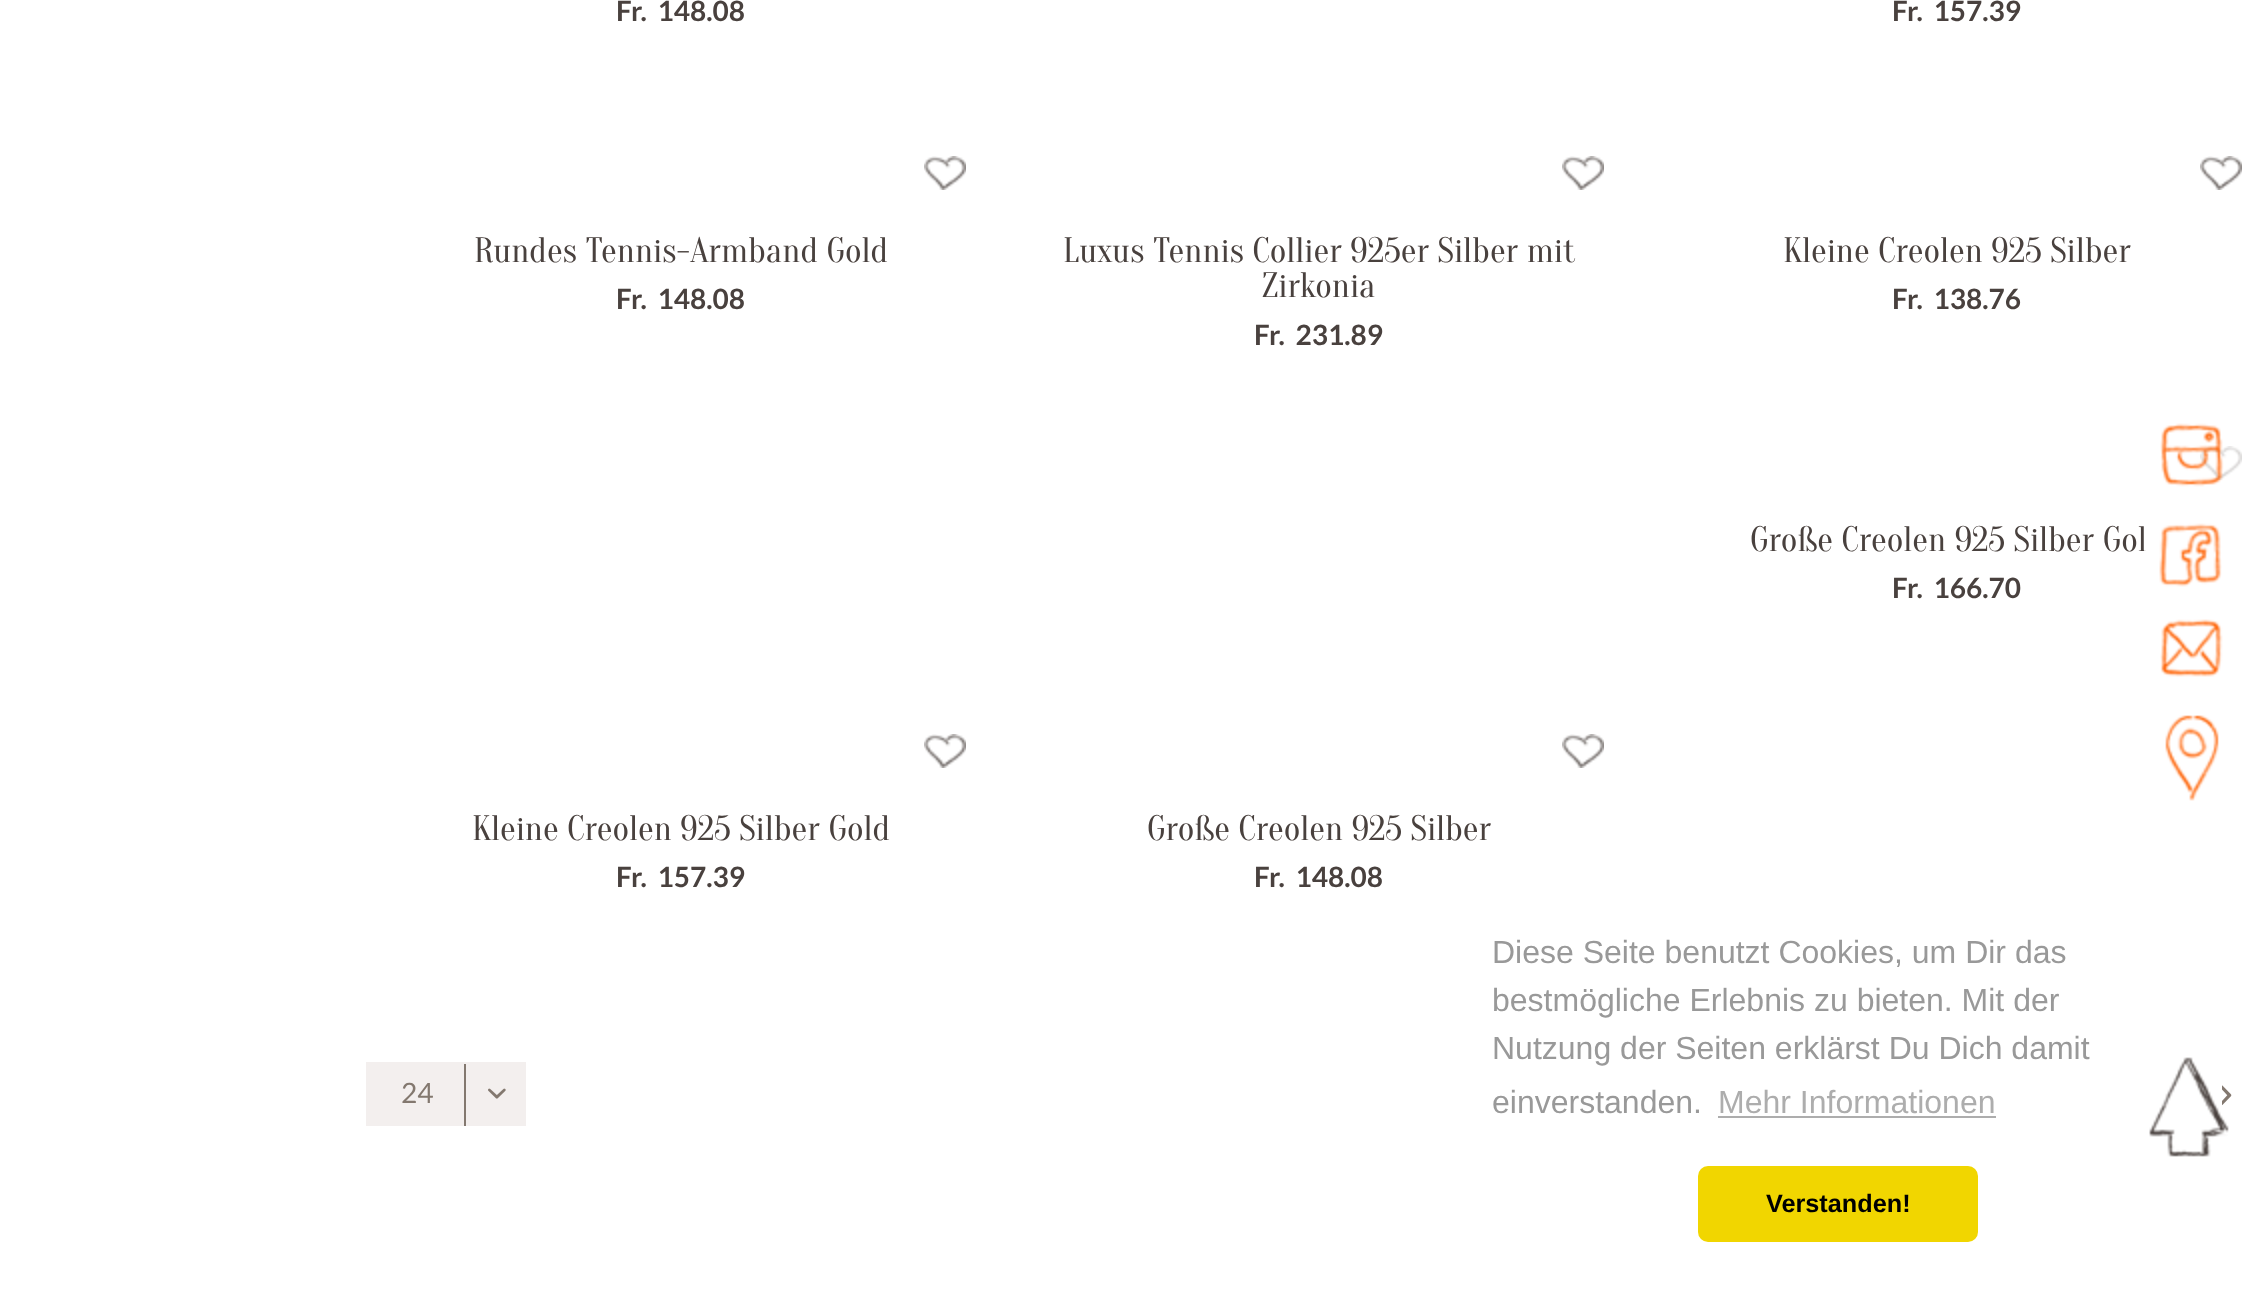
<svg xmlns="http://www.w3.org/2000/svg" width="2254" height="1311">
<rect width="100%" height="100%" fill="#fff"/>
<text x="616" y="21" style="font-family:Lato;font-size:28px;font-weight:bold;fill:#49413e" xml:space="preserve">Fr.  148.08</text>
<text x="1892" y="21" style="font-family:Lato;font-size:28px;font-weight:bold;fill:#49413e" xml:space="preserve">Fr.  157.39</text>
<image x="924" y="156" width="42" height="34" href="media/1.png"/>
<text x="474" y="262" style="font-family:Oranienbaum;font-size:35.25px;fill:#49413e">Rundes Tennis-Armband Gold</text>
<text x="616" y="309" style="font-family:Lato;font-size:28px;font-weight:bold;fill:#49413e" xml:space="preserve">Fr.  148.08</text>
<image x="1562" y="156" width="42" height="34" href="media/1.png"/>
<text x="1063" y="262" style="font-family:Oranienbaum;font-size:35.25px;fill:#49413e">Luxus Tennis Collier 925er Silber mit</text>
<text x="1262" y="297" style="font-family:Oranienbaum;font-size:35.25px;fill:#49413e">Zirkonia</text>
<text x="1254" y="345" style="font-family:Lato;font-size:28px;font-weight:bold;fill:#49413e" xml:space="preserve">Fr.  231.89</text>
<image x="2200" y="156" width="42" height="34" href="media/1.png"/>
<text x="1783" y="262" style="font-family:Oranienbaum;font-size:35.25px;fill:#49413e">Kleine Creolen 925 Silber</text>
<text x="1892" y="309" style="font-family:Lato;font-size:28px;font-weight:bold;fill:#49413e" xml:space="preserve">Fr.  138.76</text>
<image x="2200" y="446" width="42" height="34" href="media/1.png"/>
<text x="1750" y="551" style="font-family:Oranienbaum;font-size:35.25px;fill:#49413e">Große Creolen 925 Silber Gol</text>
<text x="1892" y="598" style="font-family:Lato;font-size:28px;font-weight:bold;fill:#49413e" xml:space="preserve">Fr.  166.70</text>
<image x="924" y="734" width="42" height="34" href="media/1.png"/>
<text x="472" y="840" style="font-family:Oranienbaum;font-size:35.25px;fill:#49413e">Kleine Creolen 925 Silber Gold</text>
<text x="616" y="887" style="font-family:Lato;font-size:28px;font-weight:bold;fill:#49413e" xml:space="preserve">Fr.  157.39</text>
<image x="1562" y="734" width="42" height="34" href="media/1.png"/>
<text x="1147" y="840" style="font-family:Oranienbaum;font-size:35.25px;fill:#49413e">Große Creolen 925 Silber</text>
<text x="1254" y="887" style="font-family:Lato;font-size:28px;font-weight:bold;fill:#49413e" xml:space="preserve">Fr.  148.08</text>
<rect x="366" y="1062" width="160" height="64" fill="#f3efee"/>
<text x="401" y="1103" style="font-family:Lato;font-size:28px;fill:#83786f">24</text>
<rect x="464" y="1064" width="2" height="62" fill="#83786f"/>
<image x="488" y="1088" width="18" height="11" href="media/2.png"/>
<image x="2222" y="1085" width="10" height="21" href="media/3.png"/>
<image x="2149" y="1057" width="80" height="100" href="media/4.png"/>
<rect x="2144" y="446" width="98" height="105" fill="#ffffffb3"/>
<image x="2160" y="423" width="64" height="64" href="media/5.png"/>
<image x="2159" y="523" width="63" height="64" href="media/6.png"/>
<image x="2160" y="619" width="63" height="58" href="media/7.png"/>
<image x="2165" y="715" width="54" height="86" href="media/8.png"/>
<text x="1492" y="963" style="font-family:Liberation Sans;font-size:32px;fill:#999">Diese Seite benutzt Cookies, um Dir das</text>
<text x="1492" y="1011" style="font-family:Liberation Sans;font-size:32px;fill:#999">bestmögliche Erlebnis zu bieten. Mit der</text>
<text x="1492" y="1059" style="font-family:Liberation Sans;font-size:32px;fill:#999">Nutzung der Seiten erklärst Du Dich damit</text>
<text x="1492" y="1113" style="font-family:Liberation Sans;font-size:32px;fill:#999">einverstanden.</text>
<text x="1718" y="1113" style="font-family:Liberation Sans;font-size:32px;fill:#adadad">Mehr Informationen</text>
<rect x="1718" y="1116" width="278" height="2" fill="#adadad"/>
<rect x="1698" y="1166" width="280" height="76" rx="10" fill="#f1d600"/>
<text x="1766" y="1212" style="font-family:Liberation Sans;font-size:25.25px;font-weight:bold;fill:#000">Verstanden!</text>
</svg>
